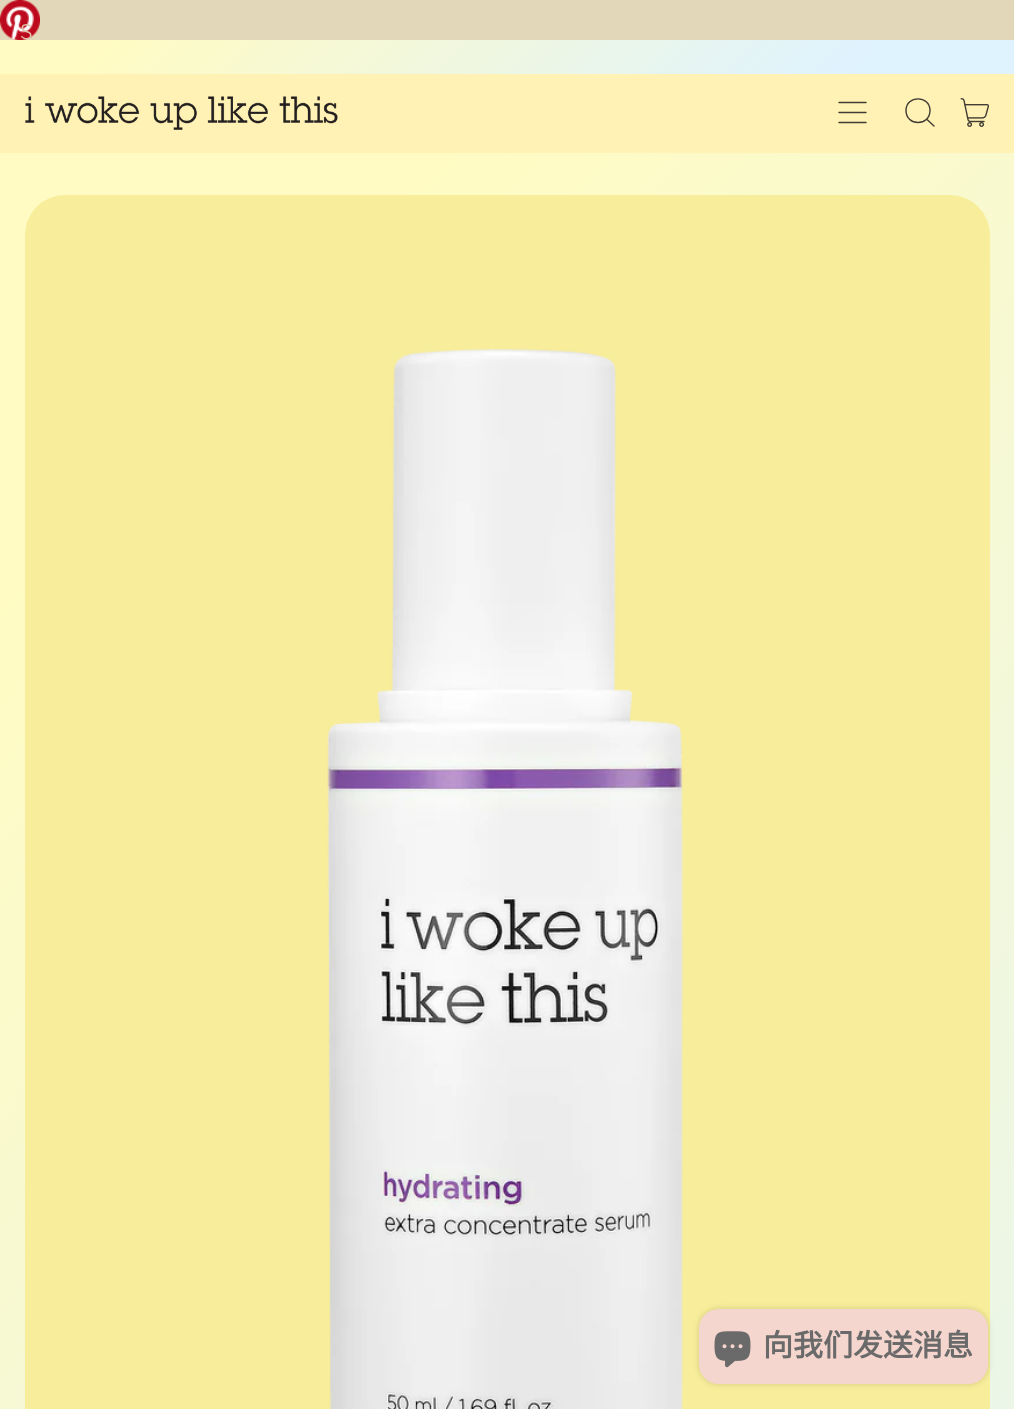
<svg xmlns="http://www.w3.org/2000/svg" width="1014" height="1409">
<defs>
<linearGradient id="g1" gradientUnits="userSpaceOnUse" x1="245" y1="-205" x2="770" y2="319"><stop offset="0.11" stop-color="#fffbc3"/><stop offset="0.84" stop-color="#dff3ff"/></linearGradient>
<linearGradient id="g2" gradientUnits="userSpaceOnUse" x1="-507" y1="659" x2="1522" y2="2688"><stop offset="0.11" stop-color="#fffbc3"/><stop offset="0.84" stop-color="#dff3ff"/></linearGradient>
</defs>
<rect width="100%" height="100%" fill="#e2d7b8"/>
<image x="0" y="0" width="40" height="40" href="media/1.png"/>
<text x="20" y="39" style="font-family:Libre Franklin;font-size:20px;font-weight:300;fill:#dfc3aa">S</text>
<rect y="40" width="1014" height="34" fill="url(#g1)"/>
<rect y="74" width="1014" height="79" fill="#fff2b4"/>
<image x="25" y="96" width="313" height="34" href="media/2.png"/>
<path d="M866 122.5h-27m27-10h-27m27-10h-27" fill="none" stroke="#413c34" stroke-width="1.4" stroke-linecap="round" stroke-linejoin="round"/>
<path d="M906 110.5c0 16 24 16 24 0c0-15.5-24-15.5-24 0zm28 15.5l-7.5-7" fill="none" stroke="#413c34" stroke-width="1.4" stroke-linecap="round" stroke-linejoin="round"/>
<image x="960" y="98" width="29" height="29" href="media/3.png"/>
<rect y="153" width="1014" height="1256" fill="url(#g2)"/>
<image x="23" y="208" width="13" height="1201" href="media/5.png"/>
<rect x="25" y="195" width="965" height="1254" rx="40" fill="#f8ed9a"/>
<image x="327" y="349" width="356" height="1060" href="media/4.png"/>
<rect x="699" y="1309" width="289" height="75" rx="20" fill="#00000026" filter="blur(3px)"/>
<rect x="699" y="1309" width="289" height="75" rx="20" fill="#f5d6ce"/>
<image x="714" y="1331" width="37" height="37" href="media/6.png"/>
<text x="763" y="1356" style="font-family:Noto Sans CJK SC;font-size:30px;font-weight:bold;fill:#6a6a6a">向我们发送消息</text>
</svg>
